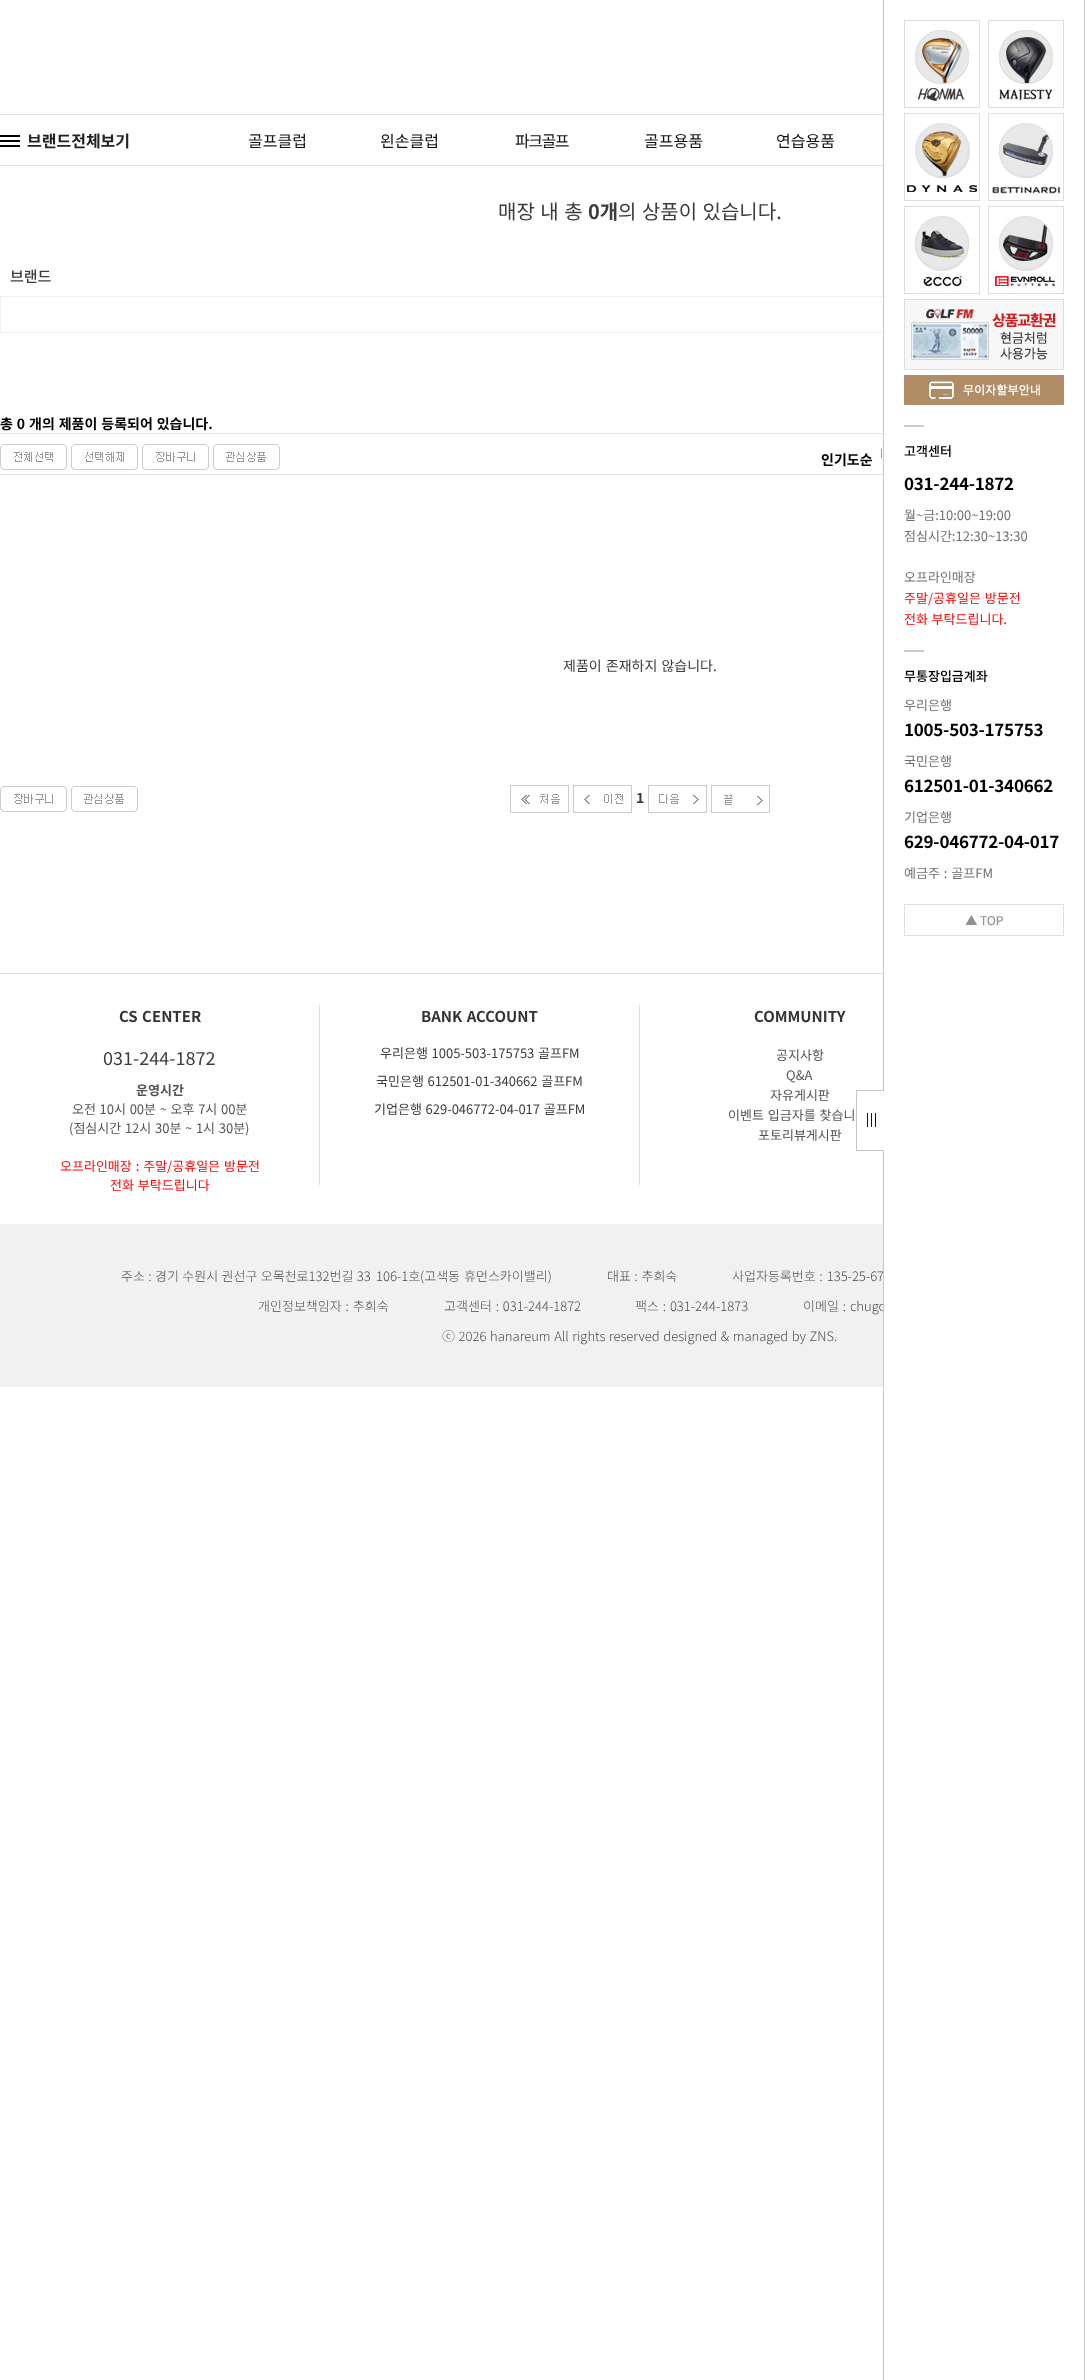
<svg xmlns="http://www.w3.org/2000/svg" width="1085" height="2380">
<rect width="100%" height="100%" fill="#fff"/>
<rect y="114" width="883" height="1" fill="#dedede"/>
<rect y="165" width="883" height="1" fill="#dedede"/>
<image x="0" y="135" width="20" height="12" href="media/1.png"/>
<text x="27" y="147" style="font-family:Noto Sans KR;font-size:16px;font-weight:bold;fill:#222">브랜드전체보기</text>
<text x="248" y="147" style="font-family:Noto Sans KR;font-size:16px;fill:#121212">골프클럽</text>
<text x="380" y="147" style="font-family:Noto Sans KR;font-size:16px;fill:#121212">왼손클럽</text>
<text x="515" y="147" style="font-family:Noto Sans KR;font-size:16px;letter-spacing:-1.5px;fill:#121212">파크골프</text>
<text x="644" y="147" style="font-family:Noto Sans KR;font-size:16px;fill:#121212">골프용품</text>
<text x="776" y="147" style="font-family:Noto Sans KR;font-size:16px;fill:#121212">연습용품</text>
<text x="498" y="219" word-spacing="1" style="font-family:Noto Sans KR;font-size:20px;fill:#3c3c3c">매장 내 총</text>
<text x="588" y="219" style="font-family:Noto Sans KR;font-size:20px;font-weight:bold;fill:#3c3c3c">0개</text>
<text x="618" y="219" word-spacing="1" style="font-family:Noto Sans KR;font-size:20px;fill:#3c3c3c">의 상품이 있습니다.</text>
<text x="10" y="282" style="font-family:Noto Sans KR;font-size:15px;font-weight:500;fill:#3c3c3c">브랜드</text>
<rect x="0.5" y="296.5" width="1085" height="36" fill="none" stroke="#efefef"/>
<text x="0" y="429" word-spacing="0.75" style="font-family:Noto Sans KR;font-size:14px;font-weight:bold;fill:#000">총 0 개의 제품이 등록되어 있습니다.</text>
<rect y="433" width="883" height="1" fill="#e2e2e2"/>
<image x="0" y="444" width="67" height="26" href="media/2.png"/>
<image x="71" y="444" width="67" height="26" href="media/3.png"/>
<image x="142" y="444" width="67" height="26" href="media/4.png"/>
<image x="213" y="444" width="67" height="26" href="media/5.png"/>
<text x="821" y="465" style="font-family:Noto Sans KR;font-size:14px;font-weight:bold;fill:#000">인기도순</text>
<rect x="881" y="449" width="1" height="9" fill="#999"/>
<rect y="474" width="883" height="1" fill="#e2e2e2"/>
<text x="563" y="671" word-spacing="1" style="font-family:Noto Sans KR;font-size:14px;fill:#3c3c3c">제품이 존재하지 않습니다.</text>
<image x="0" y="786" width="67" height="26" href="media/4.png"/>
<image x="71" y="786" width="67" height="26" href="media/5.png"/>
<image x="510" y="785" width="59" height="28" href="media/6.png"/>
<image x="573" y="785" width="59" height="28" href="media/7.png"/>
<text x="636" y="803" style="font-family:Noto Sans KR;font-size:14px;font-weight:bold;fill:#3c3c3c">1</text>
<image x="648" y="785" width="59" height="28" href="media/8.png"/>
<image x="711" y="785" width="59" height="28" href="media/9.png"/>
<rect y="1224" width="883" height="163" fill="#f1f1f1"/>
<text x="803" y="1311" word-spacing="1" style="font-family:Noto Sans KR;font-size:13px;font-weight:300;fill:#4c4c4c">이메일 : chugo</text>
<rect x="884" y="296" width="200" height="1015" fill="#fff"/>
<rect x="1084" width="1" height="2380" fill="#c7c7c7"/>
<text x="732" y="1281" word-spacing="1" style="font-family:Noto Sans KR;font-size:13px;font-weight:300;fill:#4c4c4c">사업자등록번호 : 135-25-67</text>
<rect x="883" width="1" height="2380" fill="#c7c7c7"/>
<image x="904" y="20" width="76" height="88" href="media/10.png"/>
<image x="988" y="20" width="76" height="88" href="media/11.png"/>
<image x="904" y="113" width="76" height="88" href="media/12.png"/>
<image x="988" y="113" width="76" height="88" href="media/13.png"/>
<image x="904" y="206" width="76" height="88" href="media/14.png"/>
<image x="988" y="206" width="76" height="88" href="media/15.png"/>
<image x="904" y="299" width="160" height="71" href="media/16.png"/>
<image x="904" y="375" width="160" height="30" href="media/17.png"/>
<rect x="904" y="425" width="20" height="2" fill="#cbcbcb"/>
<text x="904" y="456" style="font-family:Noto Sans KR;font-size:13px;font-weight:500;fill:#000">고객센터</text>
<text x="904" y="490" style="font-family:Noto Sans KR;font-size:17px;font-weight:bold;letter-spacing:-0.25px;fill:#000">031-244-1872</text>
<text x="904" y="520" style="font-family:Noto Sans KR;font-size:13px;fill:#707070">월~금:10:00~19:00</text>
<text x="904" y="541" style="font-family:Noto Sans KR;font-size:13px;fill:#707070">점심시간:12:30~13:30</text>
<text x="904" y="582" style="font-family:Noto Sans KR;font-size:13px;fill:#707070">오프라인매장</text>
<text x="904" y="603" word-spacing="1" style="font-family:Noto Sans KR;font-size:13px;fill:#f00">주말/공휴일은 방문전</text>
<text x="904" y="624" word-spacing="0.75" style="font-family:Noto Sans KR;font-size:13px;fill:#f00">전화 부탁드립니다.</text>
<rect x="904" y="650" width="20" height="2" fill="#cbcbcb"/>
<text x="904" y="681" style="font-family:Noto Sans KR;font-size:13px;font-weight:500;fill:#000">무통장입금계좌</text>
<text x="904" y="710" style="font-family:Noto Sans KR;font-size:13px;fill:#707070">우리은행</text>
<text x="904" y="736" style="font-family:Noto Sans KR;font-size:17px;font-weight:bold;letter-spacing:-0.25px;fill:#000">1005-503-175753</text>
<text x="904" y="766" style="font-family:Noto Sans KR;font-size:13px;fill:#707070">국민은행</text>
<text x="904" y="792" style="font-family:Noto Sans KR;font-size:17px;font-weight:bold;letter-spacing:-0.25px;fill:#000">612501-01-340662</text>
<text x="904" y="822" style="font-family:Noto Sans KR;font-size:13px;fill:#707070">기업은행</text>
<text x="904" y="848" style="font-family:Noto Sans KR;font-size:17px;font-weight:bold;letter-spacing:-0.25px;fill:#000">629-046772-04-017</text>
<text x="904" y="878" word-spacing="1" style="font-family:Noto Sans KR;font-size:13px;fill:#707070">예금주 : 골프FM</text>
<image x="904" y="904" width="160" height="32" href="media/18.png"/>
<image x="856" y="1090" width="28" height="61" href="media/19.png"/>
<rect y="973" width="883" height="1" fill="#e0e0e0"/>
<rect x="319" y="1005" width="1" height="180" fill="#e0e0e0"/>
<text x="119" y="1022" word-spacing="1" style="font-family:Noto Sans KR;font-size:15px;font-weight:bold;fill:#333">CS CENTER</text>
<text x="103" y="1065" style="font-family:Noto Sans KR;font-size:18px;fill:#3c3c3c">031-244-1872</text>
<text x="136" y="1095" style="font-family:Noto Sans KR;font-size:13px;font-weight:bold;fill:#555">운영시간</text>
<text x="72" y="1114" word-spacing="0.75" style="font-family:Noto Sans KR;font-size:13px;fill:#555">오전 10시 00분 ~ 오후 7시 00분</text>
<text x="69" y="1133" word-spacing="0.75" style="font-family:Noto Sans KR;font-size:13px;fill:#555">(점심시간 12시 30분 ~ 1시 30분)</text>
<text x="60" y="1171" word-spacing="1" style="font-family:Noto Sans KR;font-size:13px;fill:#f00">오프라인매장 : 주말/공휴일은 방문전</text>
<text x="110" y="1190" word-spacing="1" style="font-family:Noto Sans KR;font-size:13px;fill:#f00">전화 부탁드립니다</text>
<rect x="639" y="1005" width="1" height="180" fill="#e0e0e0"/>
<text x="421" y="1022" word-spacing="1" style="font-family:Noto Sans KR;font-size:15px;font-weight:bold;fill:#333">BANK ACCOUNT</text>
<text x="380" y="1058" word-spacing="0.75" style="font-family:Noto Sans KR;font-size:13px;fill:#3c3c3c">우리은행 1005-503-175753 골프FM</text>
<text x="376" y="1086" word-spacing="0.75" style="font-family:Noto Sans KR;font-size:13px;fill:#3c3c3c">국민은행 612501-01-340662 골프FM</text>
<text x="374" y="1114" word-spacing="0.75" style="font-family:Noto Sans KR;font-size:13px;fill:#3c3c3c">기업은행 629-046772-04-017 골프FM</text>
<text x="754" y="1022" style="font-family:Noto Sans KR;font-size:15px;font-weight:bold;fill:#333">COMMUNITY</text>
<text x="776" y="1060" style="font-family:Noto Sans KR;font-size:13px;fill:#555">공지사항</text>
<text x="786" y="1080" style="font-family:Noto Sans KR;font-size:13px;fill:#555">Q&amp;A</text>
<text x="770" y="1100" style="font-family:Noto Sans KR;font-size:13px;fill:#555">자유게시판</text>
<text x="728" y="1120" word-spacing="1" style="font-family:Noto Sans KR;font-size:13px;fill:#555">이벤트 입금자를 찾습니</text>
<text x="758" y="1140" style="font-family:Noto Sans KR;font-size:13px;fill:#555">포토리뷰게시판</text>
<text x="121" y="1281" word-spacing="0.5" style="font-family:Noto Sans KR;font-size:13px;font-weight:300;fill:#4c4c4c">주소 : 경기 수원시 권선구 오목천로132번길 33</text>
<text x="376" y="1281" word-spacing="1" style="font-family:Noto Sans KR;font-size:13px;font-weight:300;fill:#4c4c4c">106-1호(고색동 휴먼스카이밸리)</text>
<text x="607" y="1281" word-spacing="0.75" style="font-family:Noto Sans KR;font-size:13px;font-weight:300;fill:#4c4c4c">대표 : 추희숙</text>
<text x="258" y="1311" word-spacing="1" style="font-family:Noto Sans KR;font-size:13px;font-weight:300;fill:#4c4c4c">개인정보책임자 : 추희숙</text>
<text x="444" y="1311" word-spacing="1" style="font-family:Noto Sans KR;font-size:13px;font-weight:300;fill:#4c4c4c">고객센터 : 031-244-1872</text>
<text x="635" y="1311" word-spacing="1" style="font-family:Noto Sans KR;font-size:13px;font-weight:300;fill:#4c4c4c">팩스 : 031-244-1873</text>
<text x="442" y="1341" word-spacing="0.75" style="font-family:Noto Sans KR;font-size:13px;font-weight:300;fill:#4c4c4c">ⓒ 2026 hanareum All rights reserved designed &amp; managed by ZNS.</text>
</svg>
